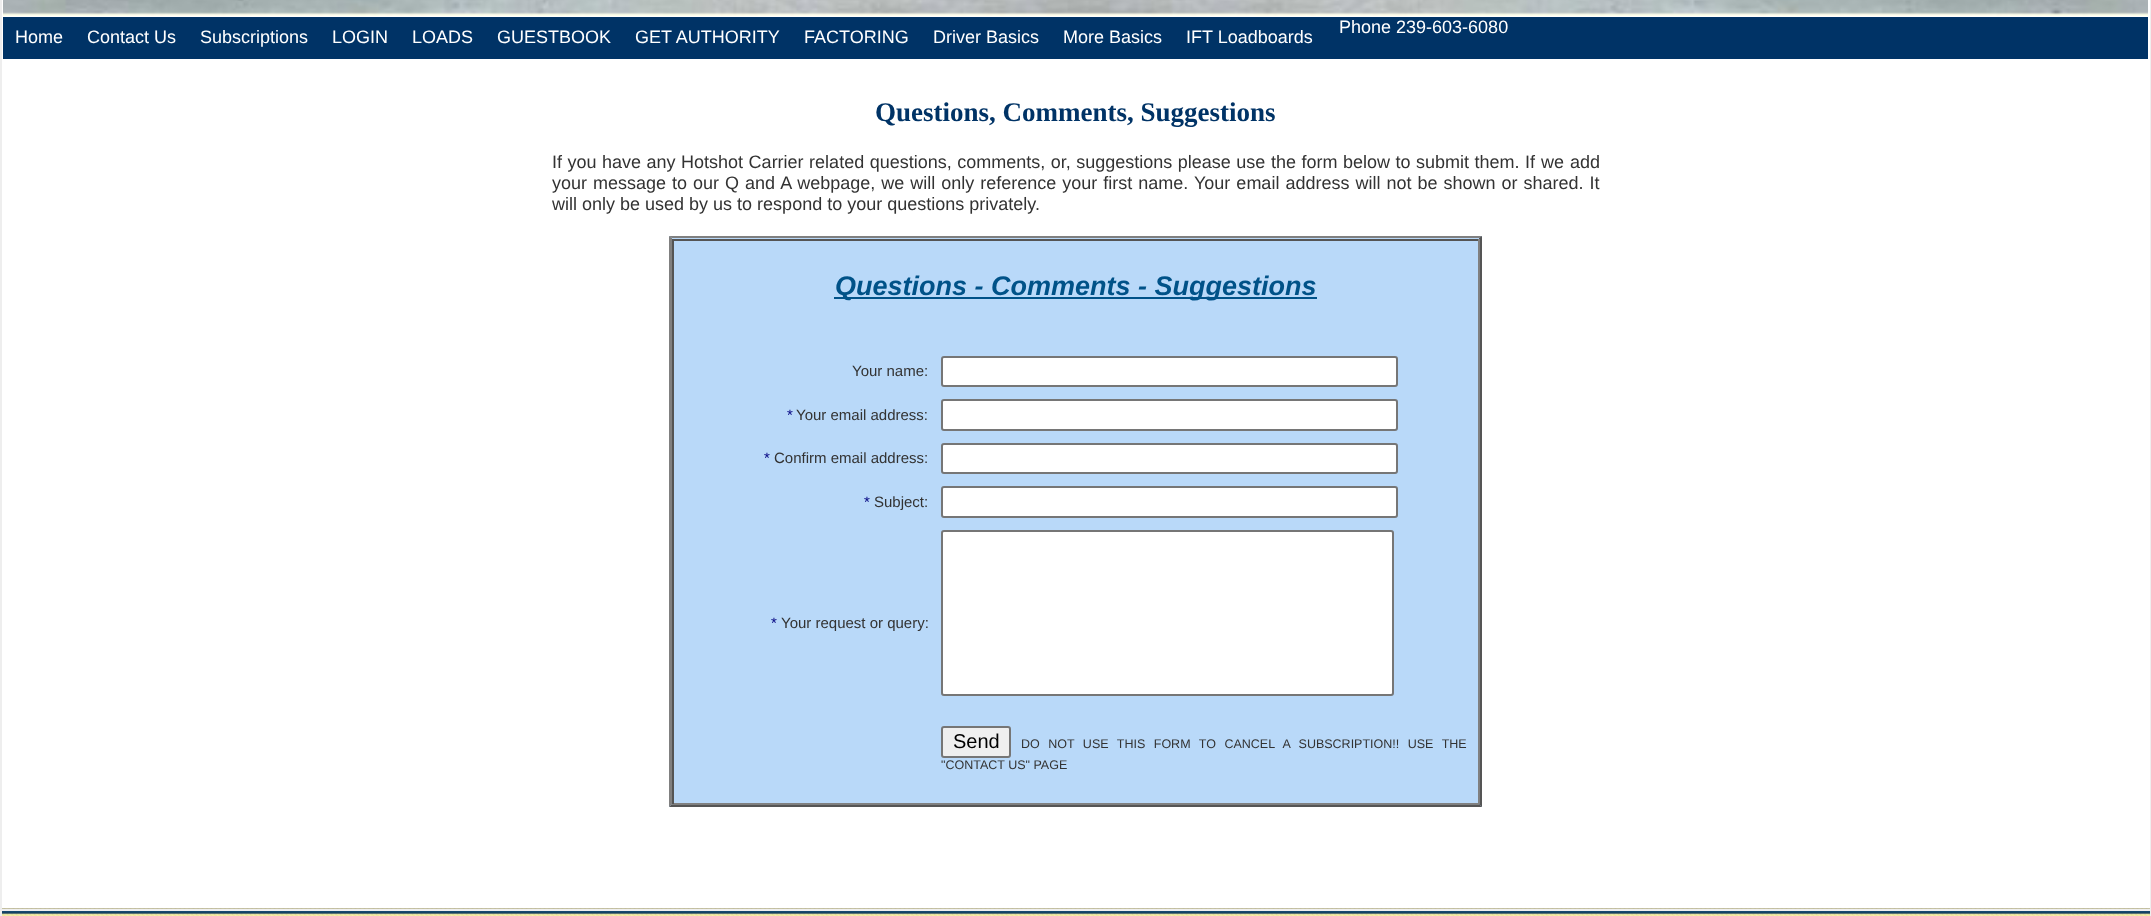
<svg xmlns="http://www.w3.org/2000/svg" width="2151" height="916">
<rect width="100%" height="100%" fill="#fff"/>
<image x="2" y="908" width="2148" height="8" href="media/1.png"/>
<rect y="909" width="2151" height="2" fill="#eee"/>
<rect x="2150" width="1" height="916" fill="#eee"/>
<rect width="2" height="916" fill="#eee"/>
<image x="3" y="0" width="2145" height="16" href="media/2.png"/>
<rect x="3" y="17" width="2145" height="42" fill="#036"/>
<text x="1339" y="33" style="font-family:Liberation Sans;font-size:18px;fill:#fff">Phone 239-603-6080</text>
<text x="15" y="43" style="font-family:Liberation Sans;font-size:18px;fill:#fff">Home</text>
<text x="87" y="43" style="font-family:Liberation Sans;font-size:18px;fill:#fff">Contact Us</text>
<text x="200" y="43" style="font-family:Liberation Sans;font-size:18px;fill:#fff">Subscriptions</text>
<text x="332" y="43" style="font-family:Liberation Sans;font-size:18px;fill:#fff">LOGIN</text>
<text x="412" y="43" style="font-family:Liberation Sans;font-size:18px;fill:#fff">LOADS</text>
<text x="497" y="43" style="font-family:Liberation Sans;font-size:18px;fill:#fff">GUESTBOOK</text>
<text x="635" y="43" style="font-family:Liberation Sans;font-size:18px;fill:#fff">GET AUTHORITY</text>
<text x="804" y="43" style="font-family:Liberation Sans;font-size:18px;fill:#fff">FACTORING</text>
<text x="933" y="43" style="font-family:Liberation Sans;font-size:18px;fill:#fff">Driver Basics</text>
<text x="1063" y="43" style="font-family:Liberation Sans;font-size:18px;fill:#fff">More Basics</text>
<text x="1186" y="43" style="font-family:Liberation Sans;font-size:18px;fill:#fff">IFT Loadboards</text>
<text x="875" y="121" style="font-family:Liberation Serif;font-size:27px;font-weight:bold;fill:#036">Questions, Comments, Suggestions</text>
<text x="552" y="168" word-spacing="0.5" style="font-family:Liberation Sans;font-size:18px;fill:#333">If you have any Hotshot Carrier related questions, comments, or, suggestions please use the form below to submit them.</text>
<text x="1525" y="168" word-spacing="1" style="font-family:Liberation Sans;font-size:18px;fill:#333">If we add</text>
<text x="552" y="189" word-spacing="1" style="font-family:Liberation Sans;font-size:18px;fill:#333">your message to our Q and A webpage, we will only reference your first name. Your email address will not be shown or shared. It</text>
<text x="552" y="210" style="font-family:Liberation Sans;font-size:18px;fill:#333">will only be used by us to respond to your questions privately.</text>
<rect x="669" y="236" width="813" height="571" fill="#b9d9f9"/>
<path d="M669 236h813l-3 2h-807z" fill="#808080"/>
<path d="M1482 236v571l-3-3v-566z" fill="#555"/>
<path d="M1482 807h-813l3-3h807z" fill="#555"/>
<path d="M669 807v-571l3 2v566z" fill="#808080"/>
<rect x="672" y="239" width="807" height="2" fill="#555"/>
<rect x="1478" y="239" width="2" height="565" fill="#808080"/>
<rect x="672" y="803" width="807" height="2" fill="#808080"/>
<rect x="672" y="239" width="2" height="565" fill="#555"/>
<rect x="834" y="297" width="483" height="2" fill="#005288"/>
<text x="835" y="295" style="font-family:Liberation Sans;font-size:27px;font-weight:bold;font-style:italic;fill:#005288">Questions - Comments - Suggestions</text>
<text x="852" y="376" style="font-family:Liberation Sans;font-size:15px;fill:#333">Your name:</text>
<rect x="942" y="357" width="455" height="29" rx="2" fill="#fff" stroke="#767676" stroke-width="2"/>
<text x="787" y="420" style="font-family:Liberation Sans;font-size:15px;fill:#000080">*</text>
<text x="796" y="420" style="font-family:Liberation Sans;font-size:15px;fill:#333">Your email address:</text>
<rect x="942" y="400" width="455" height="30" rx="2" fill="#fff" stroke="#767676" stroke-width="2"/>
<text x="764" y="463" style="font-family:Liberation Sans;font-size:15px;fill:#000080">*</text>
<text x="774" y="463" style="font-family:Liberation Sans;font-size:15px;fill:#333">Confirm email address:</text>
<rect x="942" y="444" width="455" height="29" rx="2" fill="#fff" stroke="#767676" stroke-width="2"/>
<text x="864" y="507" style="font-family:Liberation Sans;font-size:15px;fill:#000080">*</text>
<text x="874" y="507" style="font-family:Liberation Sans;font-size:15px;fill:#333">Subject:</text>
<rect x="942" y="487" width="455" height="30" rx="2" fill="#fff" stroke="#767676" stroke-width="2"/>
<text x="771" y="628" style="font-family:Liberation Sans;font-size:15px;fill:#000080">*</text>
<text x="781" y="628" style="font-family:Liberation Sans;font-size:15px;fill:#333">Your request or query:</text>
<rect x="942" y="531" width="451" height="164" rx="2" fill="#fff" stroke="#767676" stroke-width="2"/>
<rect x="942" y="727" width="68" height="30" rx="2" fill="#efefef" stroke="#767676" stroke-width="2"/>
<text x="953" y="748" style="font-family:Liberation Sans;font-size:20px;fill:#000">Send</text>
<text x="1021" y="748" word-spacing="5" style="font-family:Liberation Sans;font-size:12.5px;fill:#333">DO NOT USE THIS FORM TO CANCEL A SUBSCRIPTION!! USE THE</text>
<text x="941" y="769" style="font-family:Liberation Sans;font-size:12.5px;fill:#333">"CONTACT US" PAGE</text>
</svg>
